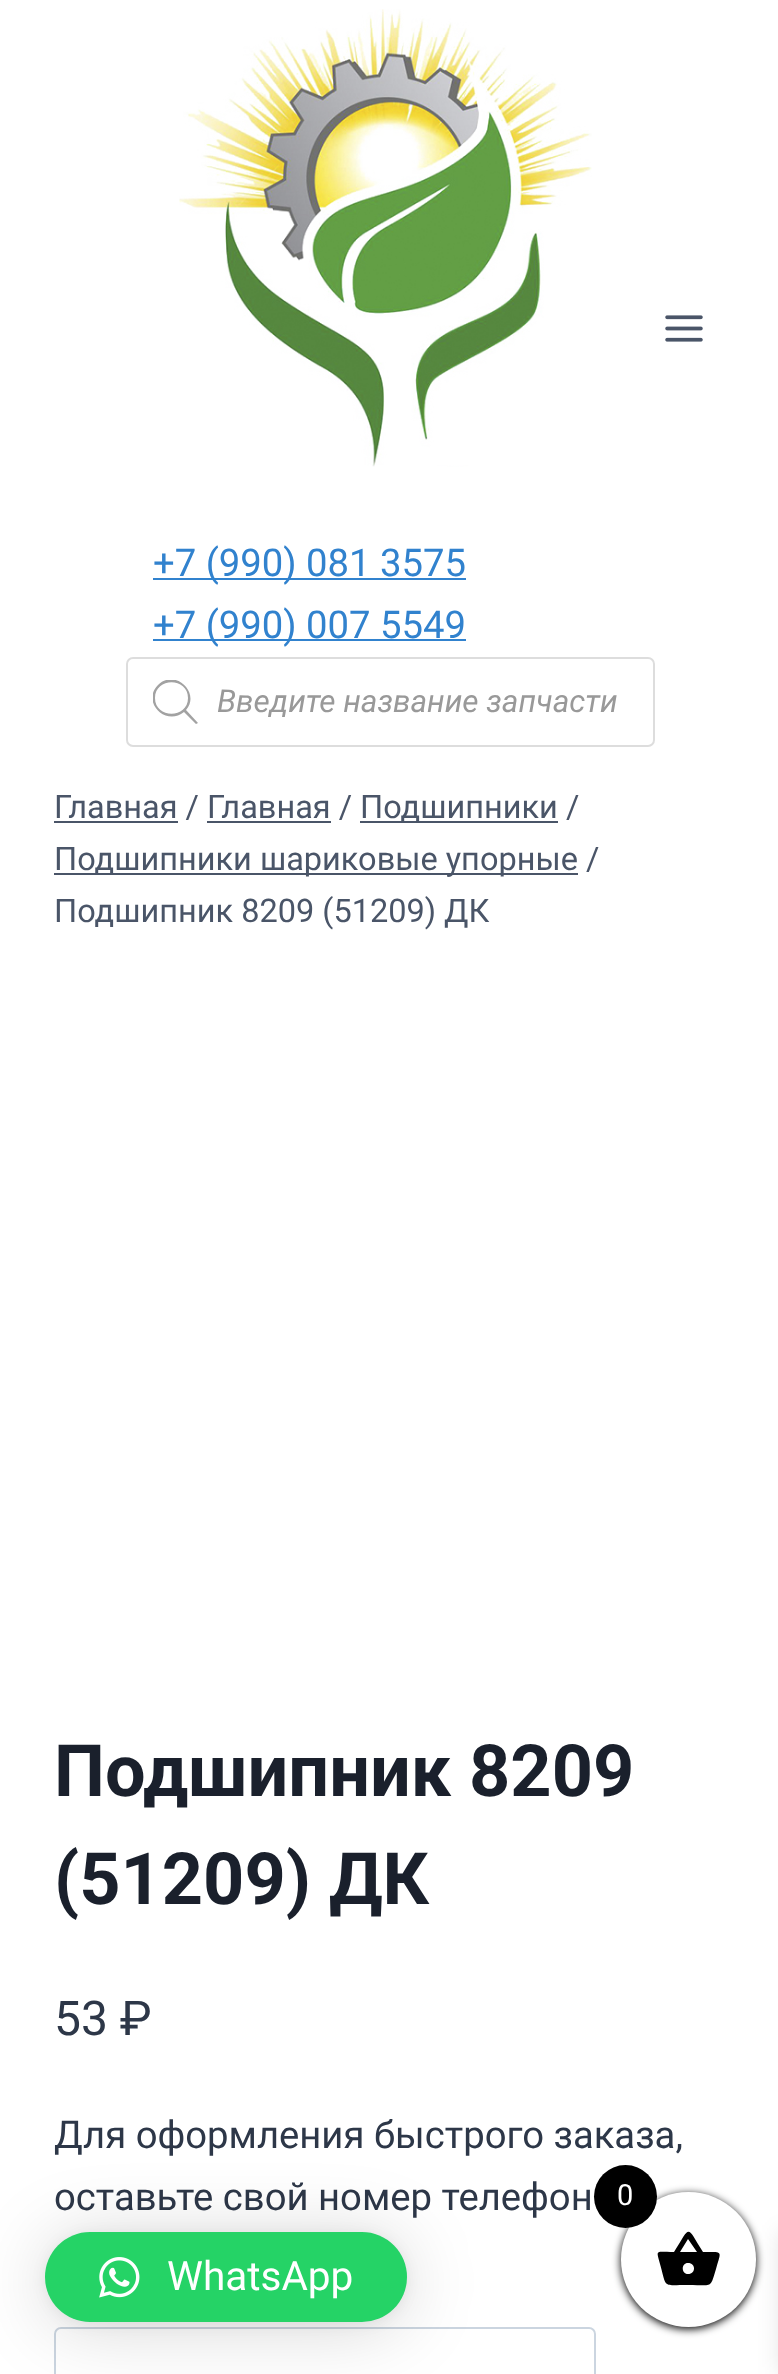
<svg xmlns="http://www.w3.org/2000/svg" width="778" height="2374">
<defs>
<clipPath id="clip1"><rect x="153" y="680" width="45" height="45"/></clipPath>
</defs>
<rect width="100%" height="100%" fill="#fff"/>
<image x="665" y="315" width="38" height="27" href="media/1.png"/>
<image x="179" y="9" width="413" height="458" href="media/2.png"/>
<rect x="153" y="578" width="313" height="2" fill="#3182ce"/>
<text x="153" y="576" style="font-family:Roboto;font-size:38.25px;fill:#3182ce">+7 (990) 081 3575</text>
<rect x="153" y="639" width="313" height="2" fill="#3182ce"/>
<text x="153" y="638" style="font-family:Roboto;font-size:38.25px;fill:#3182ce">+7 (990) 007 5549</text>
<rect x="127" y="658" width="527" height="88" rx="6" fill="none" stroke="#ddd" stroke-width="2"/>
<g clip-path="url(#clip1)">
<path d="M198 723l-12-13c15-17-11-42-28-25c-17 17 8 42 26 27l12 12zm-43-25c0-21 33-21 33 0c0 21-33 21-33 0z" fill="#a2a2a2"/>
</g>
<text x="217" y="712" style="font-family:Roboto;font-size:31.5px;font-style:italic;fill:#999">Введите название запчасти</text>
<text x="54" y="818" style="font-family:Roboto;font-size:32.5px;fill:#4a5568">Главная / Главная /</text>
<rect x="54" y="821" width="124" height="2" fill="#4a5568"/>
<rect x="360" y="821" width="198" height="2" fill="#4a5568"/>
<text x="360" y="818" style="font-family:Roboto;font-size:32.5px;fill:#4a5568">Подшипники /</text>
<rect x="207" y="821" width="124" height="2" fill="#4a5568"/>
<rect x="54" y="873" width="524" height="2" fill="#4a5568"/>
<text x="54" y="870" style="font-family:Roboto;font-size:32.5px;fill:#4a5568">Подшипники шариковые упорные</text>
<text x="586" y="870" style="font-family:Roboto;font-size:32.5px;fill:#4a5568">/</text>
<text x="54" y="922" style="font-family:Roboto;font-size:32.5px;fill:#4a5568">Подшипник 8209 (51209) ДК</text>
<text x="54" y="1796" style="font-family:Roboto;font-size:72px;font-weight:bold;fill:#1a202c">Подшипник 8209</text>
<text x="54" y="1904" style="font-family:Roboto;font-size:72px;font-weight:bold;fill:#1a202c">(51209) ДК</text>
<text x="54" y="2035" style="font-family:Roboto;font-size:48px;fill:#2d3748">53 ₽</text>
<text x="54" y="2148" style="font-family:Roboto;font-size:38.25px;fill:#2d3748">Для оформления быстрого заказа,</text>
<text x="54" y="2210" style="font-family:Roboto;font-size:38.25px;fill:#2d3748">оставьте свой номер телефон</text>
<rect x="55" y="2328" width="540" height="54" rx="6" fill="none" stroke="#cbd5e0" stroke-width="2"/>
<rect x="621" y="2194" width="135" height="135" rx="67.5" fill="#000" filter="blur(4.5px)"/>
<rect x="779" y="2232" width="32" height="142" fill="#0000001a" filter="blur(11px)"/>
<circle cx="688.5" cy="2259.5" r="67.5" fill="#fff"/>
<circle cx="625.5" cy="2196.5" r="31.5" fill="#000"/>
<text x="617" y="2205" style="font-family:Roboto;font-size:29px;fill:#fff">0</text>
<path d="M688 2274c8 0 8-11 0-11c-7 0-7 11 0 11zm-8-22h17l-9-13zm23 0c21 0 18-2 13 17c-6 20-3 16-28 16c-26 0-21 4-28-21c-4-15-5-12 14-12c17-27 12-27 29 0z" fill="#000"/>
<rect x="45" y="2237" width="362" height="90" rx="45" fill="#00000029" filter="blur(36px)"/>
<rect x="45" y="2234" width="362" height="90" rx="45" fill="#0000000f" filter="blur(7px)"/>
<rect x="45" y="2232" width="362" height="90" rx="45" fill="#25d366"/>
<image x="99" y="2257" width="41" height="41" href="media/3.png"/>
<text x="167" y="2290" style="font-family:Roboto;font-size:40.5px;fill:#fff">WhatsApp</text>
</svg>
